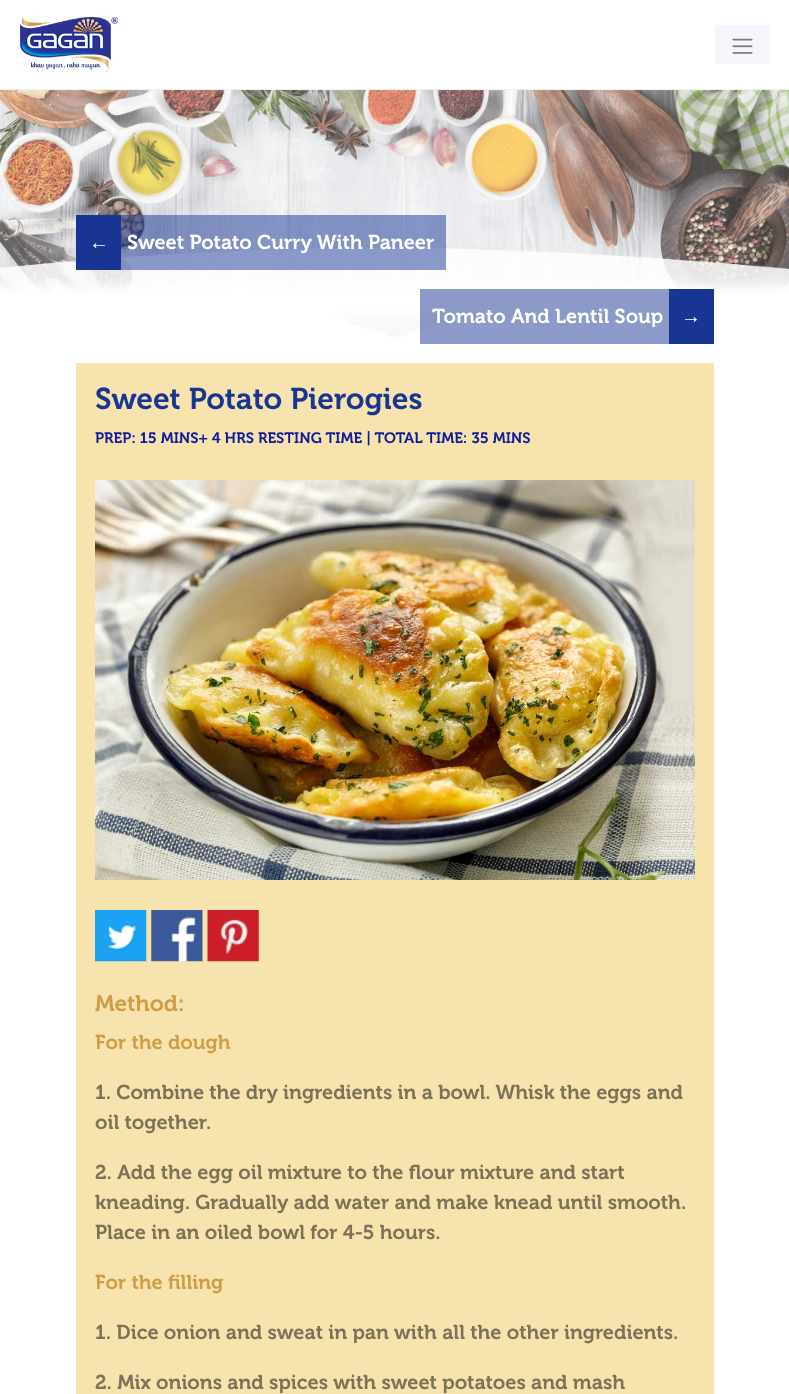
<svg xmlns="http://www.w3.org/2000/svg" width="789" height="1394">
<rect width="100%" height="100%" fill="#fff"/>
<rect y="89" width="789" height="1" fill="#f0f0f0"/>
<image x="20" y="16" width="98" height="57" href="media/1.png"/>
<rect x="715" y="25" width="55" height="39" fill="#f5f6fb"/>
<image x="732" y="38" width="21" height="16" href="media/2.png"/>
<image x="0" y="90" width="789" height="247" href="media/3.png"/>
<rect x="121" y="215" width="325" height="55" fill="#18359480"/>
<rect x="76" y="215" width="45" height="55" fill="#183594"/>
<text x="89" y="249" style="font-family:Liberation Sans;font-size:20px;fill:#fff">←</text>
<text x="127" y="249" style="font-family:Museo;font-size:20px;fill:#fff">Sweet Potato Curry With Paneer</text>
<rect x="420" y="289" width="249" height="55" fill="#18359480"/>
<text x="432" y="323" style="font-family:Museo;font-size:20px;fill:#fff">Tomato And Lentil Soup</text>
<rect x="669" y="289" width="45" height="55" fill="#183594"/>
<text x="681" y="323" style="font-family:Liberation Sans;font-size:20px;fill:#fff">→</text>
<rect x="76" y="363" width="638" height="1031" fill="#f7e3ad"/>
<text x="95" y="409" style="font-family:Museo;font-size:30px;fill:#183594">Sweet Potato Pierogies</text>
<text x="95" y="443" style="font-family:Museo;font-size:15px;fill:#0f1a9d">PREP: 15 MINS+ 4 HRS RESTING TIME | TOTAL TIME: 35 MINS</text>
<image x="95" y="480" width="600" height="400" href="media/4.png"/>
<image x="95" y="910" width="52" height="52" href="media/5.png"/>
<image x="151" y="910" width="52" height="52" href="media/6.png"/>
<image x="207" y="910" width="52" height="52" href="media/7.png"/>
<text x="95" y="1011" style="font-family:Museo;font-size:22.5px;fill:#cf9c48">Method:</text>
<text x="95" y="1049" style="font-family:Museo;font-size:20px;fill:#cf9c48">For the dough</text>
<text x="95" y="1099" style="font-family:Museo;font-size:20px;fill:#7c7257">1. Combine the dry ingredients in a bowl. Whisk the eggs and</text>
<text x="95" y="1129" style="font-family:Museo;font-size:20px;fill:#7c7257">oil together.</text>
<text x="95" y="1179" style="font-family:Museo;font-size:20px;fill:#7c7257">2. Add the egg oil mixture to the flour mixture and start</text>
<text x="95" y="1209" style="font-family:Museo;font-size:20px;fill:#7c7257">kneading. Gradually add water and make knead until smooth.</text>
<text x="95" y="1239" style="font-family:Museo;font-size:20px;fill:#7c7257">Place in an oiled bowl for 4-5 hours.</text>
<text x="95" y="1289" style="font-family:Museo;font-size:20px;fill:#cf9c48">For the filling</text>
<text x="95" y="1339" style="font-family:Museo;font-size:20px;fill:#7c7257">1. Dice onion and sweat in pan with all the other ingredients.</text>
<text x="95" y="1389" style="font-family:Museo;font-size:20px;fill:#7c7257">2. Mix onions and spices with sweet potatoes and mash</text>
</svg>
